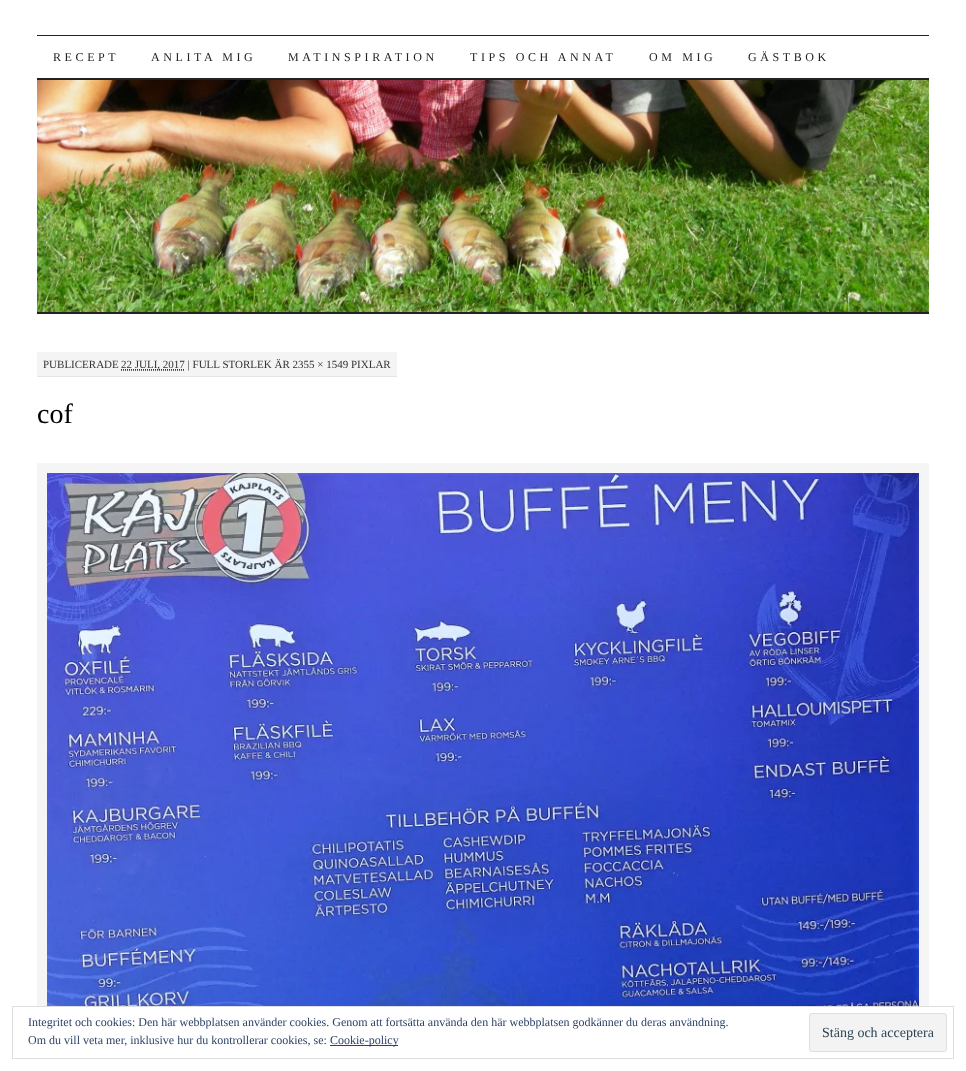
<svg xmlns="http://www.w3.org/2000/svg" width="966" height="1071">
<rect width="100%" height="100%" fill="#fff"/>
<rect x="37" y="35" width="892" height="1" fill="#222"/>
<rect x="37" y="78" width="892" height="2" fill="#222"/>
<text x="53" y="61" style="font-family:Liberation Serif;font-size:12px;letter-spacing:3.6px;fill:#222">RECEPT</text>
<text x="151" y="61" style="font-family:Liberation Serif;font-size:12px;letter-spacing:3.6px;fill:#222">ANLITA MIG</text>
<text x="288" y="61" style="font-family:Liberation Serif;font-size:12px;letter-spacing:3.6px;fill:#222">MATINSPIRATION</text>
<text x="470" y="61" style="font-family:Liberation Serif;font-size:12px;letter-spacing:3.6px;fill:#222">TIPS OCH ANNAT</text>
<text x="649" y="61" style="font-family:Liberation Serif;font-size:12px;letter-spacing:3.6px;fill:#222">OM MIG</text>
<text x="748" y="61" style="font-family:Liberation Serif;font-size:12px;letter-spacing:3.6px;fill:#222">GÄSTBOK</text>
<image x="37" y="80" width="892" height="232" href="media/1.png"/>
<rect x="37" y="312" width="892" height="2" fill="#222"/>
<rect x="37" y="352" width="360" height="24" fill="#f4f4f4"/>
<rect x="37" y="376" width="360" height="1" fill="#e5e5e5"/>
<text x="43" y="368" style="font-family:Liberation Serif;font-size:11px;fill:#333">PUBLICERADE</text>
<path d="M121 370.5h64" fill="none" stroke="#666" stroke-dasharray="1 1"/>
<path d="M121 369.5h64" fill="none" stroke="#333" stroke-dasharray="1 1"/>
<text x="121" y="368" style="font-family:Liberation Serif;font-size:11px;fill:#333">22 JULI, 2017 | FULL STORLEK ÄR 2355 × 1549 PIXLAR</text>
<text x="37" y="423" style="font-family:Liberation Serif;font-size:28px;fill:#000">cof</text>
<rect x="37" y="463" width="892" height="543" fill="#f5f5f5"/>
<image x="47" y="473" width="872" height="533" href="media/2.png"/>
<rect x="12.5" y="1006.5" width="941" height="52" fill="none" stroke="#dedede"/>
<text x="28" y="1026" style="font-family:Liberation Serif;font-size:12px;fill:#2e4467">Integritet och cookies: Den här webbplatsen använder cookies. Genom att fortsätta använda den här webbplatsen godkänner du deras användning.</text>
<text x="28" y="1044" style="font-family:Liberation Serif;font-size:12px;fill:#2e4467">Om du vill veta mer, inklusive hur du kontrollerar cookies, se:</text>
<rect x="330" y="1045" width="68" height="1" fill="#2e4467"/>
<text x="330" y="1044" style="font-family:Liberation Serif;font-size:12px;fill:#2e4467">Cookie-policy</text>
<rect x="809.5" y="1013.5" width="137" height="38" rx="2.5" fill="#f3f3f3" stroke="#dedede"/>
<text x="822" y="1037" style="font-family:Liberation Serif;font-size:14px;fill:#2e4453">Stäng och acceptera</text>
</svg>
